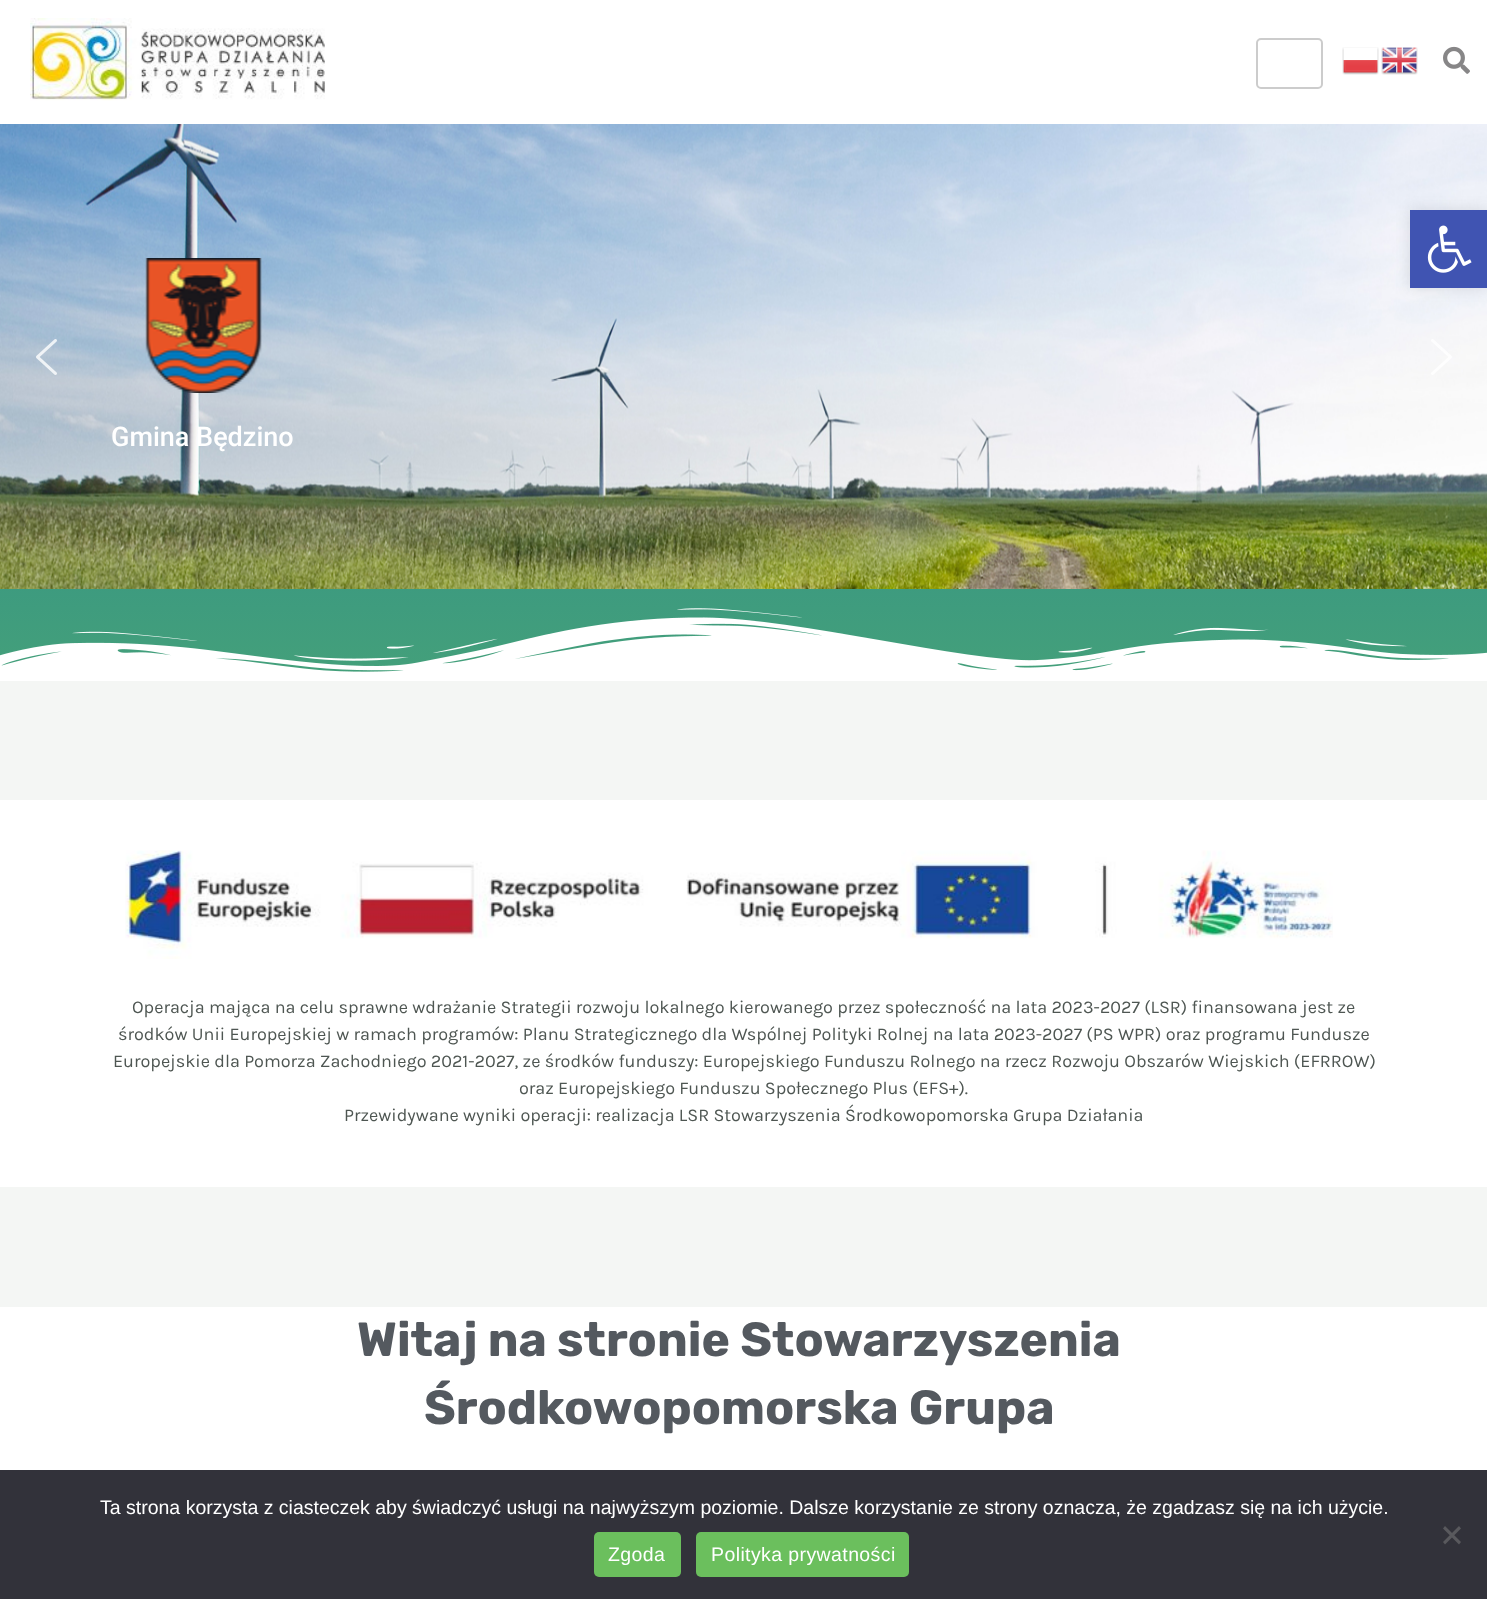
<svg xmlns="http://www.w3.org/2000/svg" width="1487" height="1599">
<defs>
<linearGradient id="g1" gradientUnits="userSpaceOnUse" x1="744" y1="124" x2="744" y2="680"><stop offset="0" stop-color="#1d8197"/><stop offset="1" stop-color="#44a07a"/></linearGradient>
</defs>
<rect width="100%" height="100%" fill="#f4f6f4"/>
<image x="0" y="124" width="1487" height="465" href="media/8.png"/>
<rect x="1410" y="210" width="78" height="78" fill="#0000001a" filter="blur(7.5px)"/>
<rect x="1410" y="210" width="77" height="78" fill="#4054b2"/>
<image x="1427" y="225" width="45" height="48" href="media/1.png"/>
<rect width="1487" height="124" fill="#fff"/>
<image x="30" y="18" width="295" height="83" href="media/2.png"/>
<rect x="1257" y="39" width="65" height="49" rx="4" fill="none" stroke="#ccc" stroke-width="2"/>
<image x="1342" y="47" width="37" height="28" href="media/3.png"/>
<image x="1381" y="47" width="37" height="28" href="media/4.png"/>
<image x="1443" y="46" width="27" height="28" href="media/5.png"/>
<image x="36" y="339" width="21" height="36" href="media/6.png"/>
<image x="1431" y="339" width="21" height="36" href="media/7.png"/>
<image x="145" y="258" width="117" height="135" href="media/9.png"/>
<text x="111" y="446" style="font-family:Roboto;font-size:27px;font-weight:500;fill:#fff">Gmina Będzino</text>
<rect y="589" width="1487" height="83" fill="url(#g1)"/>
<image x="0" y="608" width="1487" height="73" href="media/10.png"/>
<rect y="800" width="1487" height="387" fill="#fff"/>
<image x="125" y="850" width="1208" height="109" href="media/11.png"/>
<text x="132" y="1013" style="font-family:Karla;font-size:18px;fill:#4e5652">Operacja mająca na celu sprawne wdrażanie Strategii rozwoju lokalnego kierowanego przez społeczność na lata 2023-2027 (LSR) finansowana jest ze</text>
<text x="118" y="1040" style="font-family:Karla;font-size:18px;fill:#4e5652">środków Unii Europejskiej w ramach programów: Planu Strategicznego dla Wspólnej Polityki Rolnej na lata 2023-2027 (PS WPR) oraz programu Fundusze</text>
<text x="113" y="1067" style="font-family:Karla;font-size:18px;fill:#4e5652">Europejskie dla Pomorza Zachodniego 2021-2027, ze środków funduszy: Europejskiego Funduszu Rolnego na rzecz Rozwoju Obszarów Wiejskich (EFRROW)</text>
<text x="519" y="1094" style="font-family:Karla;font-size:18px;fill:#4e5652">oraz Europejskiego Funduszu Społecznego Plus (EFS+).</text>
<text x="344" y="1121" style="font-family:Karla;font-size:18px;fill:#4e5652">Przewidywane wyniki operacji: realizacja LSR Stowarzyszenia Środkowopomorska Grupa Działania</text>
<rect y="1307" width="1487" height="163" fill="#fff"/>
<text x="357" y="1356" style="font-family:Rubik;font-size:48px;font-weight:bold;fill:#54595f">Witaj na stronie Stowarzyszenia</text>
<text x="424" y="1424" style="font-family:Rubik;font-size:48px;font-weight:bold;fill:#54595f">Środkowopomorska Grupa</text>
<rect y="1470" width="1487" height="129" fill="#32323a"/>
<text x="100" y="1514" style="font-family:Liberation Sans;font-size:19.5px;fill:#fff">Ta strona korzysta z ciasteczek aby świadczyć usługi na najwyższym poziomie. Dalsze korzystanie ze strony oznacza, że zgadzasz się na ich użycie.</text>
<path d="M1459 1526l2 2.5l-16 16l-2-2.5z" fill="#59595d"/>
<path d="M1443 1528.5l2-2.5l16 16l-2 2.5z" fill="#59595d"/>
<rect x="594" y="1532" width="87" height="45" rx="5" fill="#6bbf5d"/>
<text x="608" y="1561" style="font-family:Liberation Sans;font-size:19.5px;letter-spacing:0.4px;fill:#fff">Zgoda</text>
<rect x="696" y="1532" width="213" height="45" rx="5" fill="#6bbf5d"/>
<text x="711" y="1561" style="font-family:Liberation Sans;font-size:19.5px;letter-spacing:0.4px;fill:#fff">Polityka prywatności</text>
</svg>
